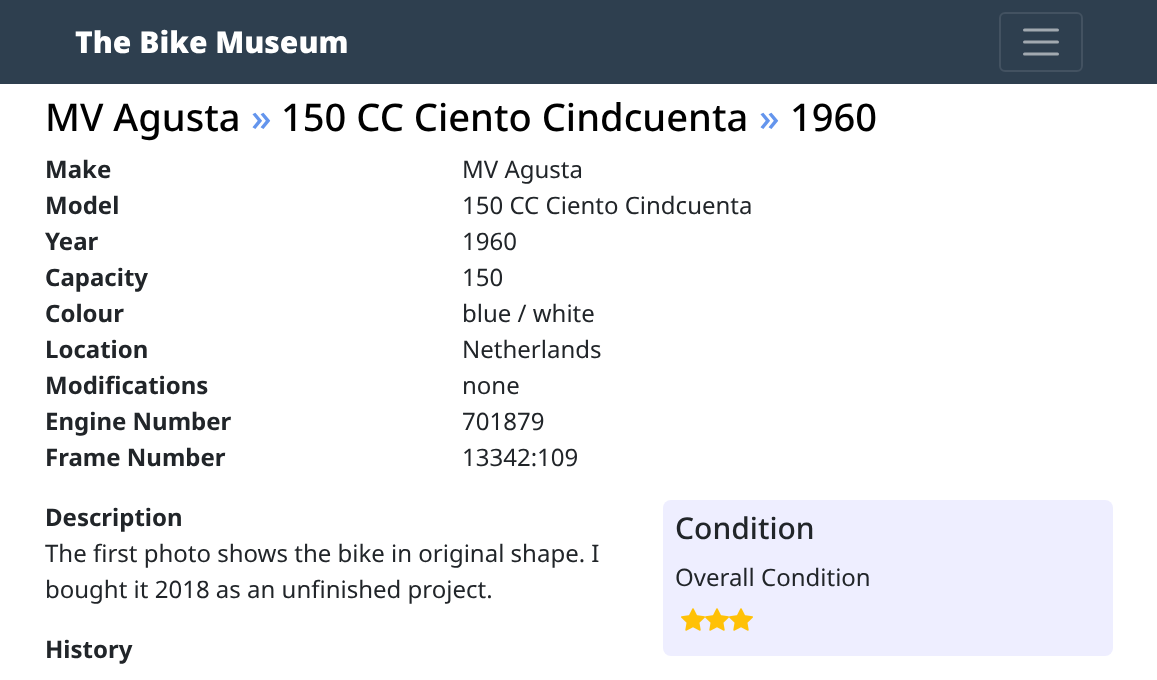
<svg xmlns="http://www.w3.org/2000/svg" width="1157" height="680">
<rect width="100%" height="100%" fill="#fff"/>
<rect width="1157" height="84" fill="#2e3f4f"/>
<text x="75" y="53" style="font-family:Noto Sans;font-size:30px;font-weight:900;fill:#fff">The Bike Museum</text>
<rect x="1000" y="13" width="82" height="58" rx="5" fill="none" stroke="#435261" stroke-width="2"/>
<path d="M1024.5 30h33m-33 12h33m-33 12h33" fill="none" stroke="#a1a9b0" stroke-width="3" stroke-linecap="round"/>
<text x="45" y="131" style="font-family:Noto Sans;font-size:38.1px;font-weight:500;fill:#000">MV Agusta</text>
<text x="251" y="131" style="font-family:Noto Sans;font-size:38.1px;font-weight:500;fill:#6495ed">»</text>
<text x="281" y="131" style="font-family:Noto Sans;font-size:38.1px;font-weight:500;fill:#000">150 CC Ciento Cindcuenta</text>
<text x="759" y="131" style="font-family:Noto Sans;font-size:38.1px;font-weight:500;fill:#6495ed">»</text>
<text x="790" y="131" style="font-family:Noto Sans;font-size:38.1px;font-weight:500;fill:#000">1960</text>
<text x="45" y="178" style="font-family:Noto Sans;font-size:24px;font-weight:bold;fill:#212529">Make</text>
<text x="462" y="178" style="font-family:Noto Sans;font-size:24px;fill:#212529">MV Agusta</text>
<text x="45" y="214" style="font-family:Noto Sans;font-size:24px;font-weight:bold;fill:#212529">Model</text>
<text x="462" y="214" style="font-family:Noto Sans;font-size:24px;fill:#212529">150 CC Ciento Cindcuenta</text>
<text x="45" y="250" style="font-family:Noto Sans;font-size:24px;font-weight:bold;fill:#212529">Year</text>
<text x="462" y="250" style="font-family:Noto Sans;font-size:24px;fill:#212529">1960</text>
<text x="45" y="286" style="font-family:Noto Sans;font-size:24px;font-weight:bold;fill:#212529">Capacity</text>
<text x="462" y="286" style="font-family:Noto Sans;font-size:24px;fill:#212529">150</text>
<text x="45" y="322" style="font-family:Noto Sans;font-size:24px;font-weight:bold;fill:#212529">Colour</text>
<text x="462" y="322" style="font-family:Noto Sans;font-size:24px;fill:#212529">blue / white</text>
<text x="45" y="358" style="font-family:Noto Sans;font-size:24px;font-weight:bold;fill:#212529">Location</text>
<text x="462" y="358" style="font-family:Noto Sans;font-size:24px;fill:#212529">Netherlands</text>
<text x="45" y="394" style="font-family:Noto Sans;font-size:24px;font-weight:bold;fill:#212529">Modifications</text>
<text x="462" y="394" style="font-family:Noto Sans;font-size:24px;fill:#212529">none</text>
<text x="45" y="430" style="font-family:Noto Sans;font-size:24px;font-weight:bold;fill:#212529">Engine Number</text>
<text x="462" y="430" style="font-family:Noto Sans;font-size:24px;fill:#212529">701879</text>
<text x="45" y="466" style="font-family:Noto Sans;font-size:24px;font-weight:bold;fill:#212529">Frame Number</text>
<text x="462" y="466" style="font-family:Noto Sans;font-size:24px;fill:#212529">13342:109</text>
<text x="45" y="526" style="font-family:Noto Sans;font-size:24px;font-weight:bold;fill:#212529">Description</text>
<rect x="663" y="500" width="450" height="156" rx="8" fill="#eef"/>
<text x="675" y="539" style="font-family:Noto Sans;font-size:30px;font-weight:500;fill:#212529">Condition</text>
<text x="675" y="586" style="font-family:Noto Sans;font-size:24px;fill:#212529">Overall Condition</text>
<image x="681" y="608" width="24" height="23" href="media/1.png"/>
<image x="705" y="608" width="24" height="23" href="media/1.png"/>
<image x="729" y="608" width="24" height="23" href="media/1.png"/>
<text x="45" y="562" style="font-family:Noto Sans;font-size:24px;fill:#212529">The first photo shows the bike in original shape. I</text>
<text x="45" y="598" style="font-family:Noto Sans;font-size:24px;fill:#212529">bought it 2018 as an unfinished project.</text>
<text x="45" y="658" style="font-family:Noto Sans;font-size:24px;font-weight:bold;fill:#212529">History</text>
</svg>
